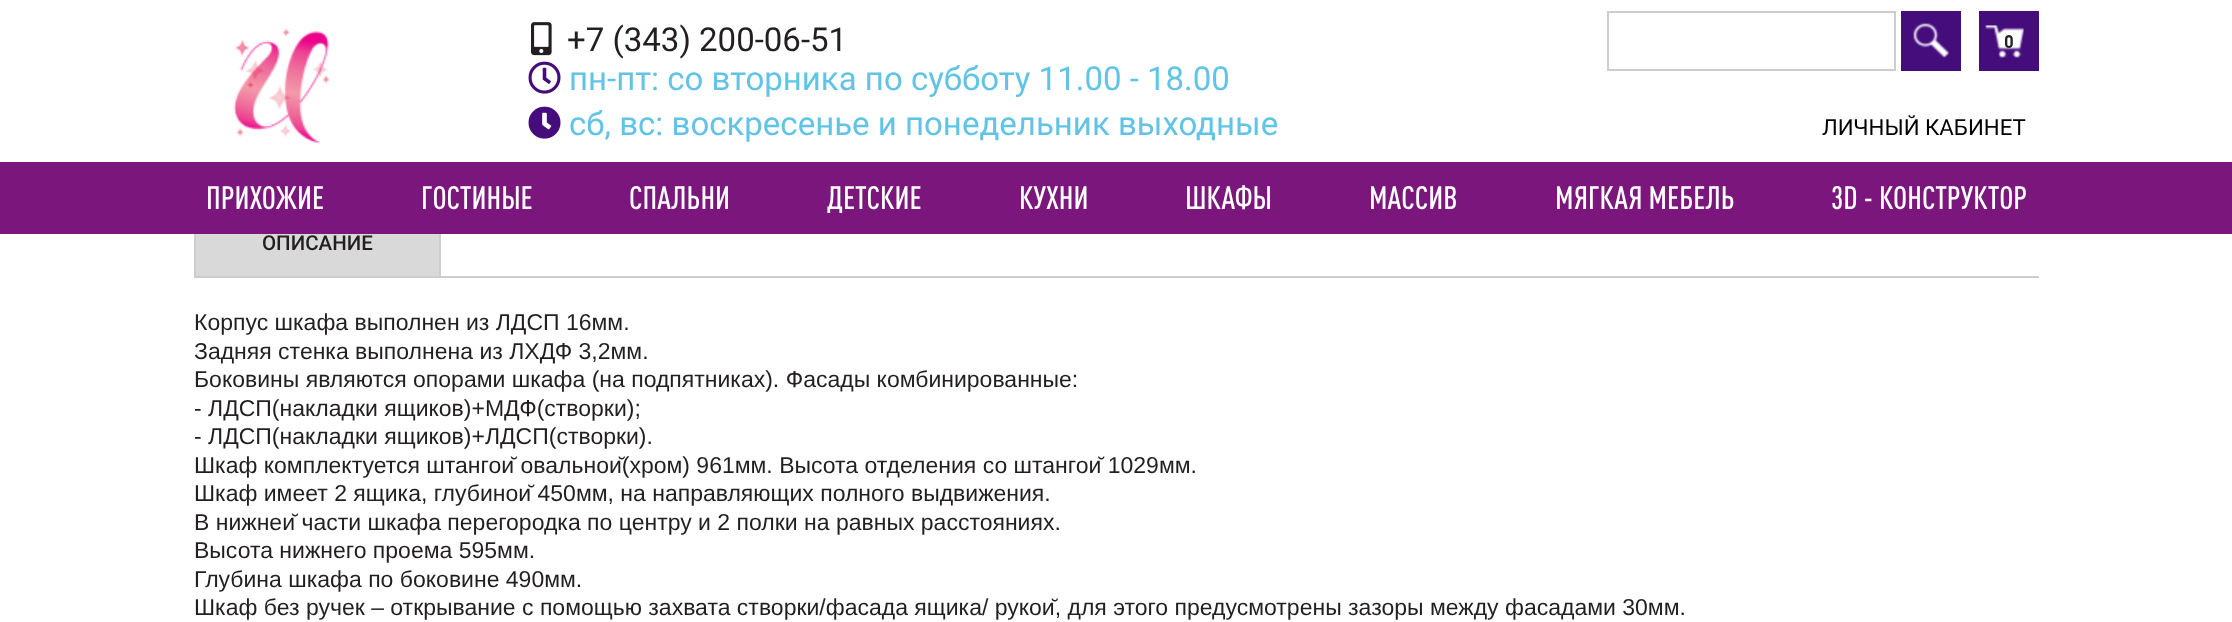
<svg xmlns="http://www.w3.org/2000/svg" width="2232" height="622">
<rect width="100%" height="100%" fill="#fff"/>
<image x="233" y="28" width="97" height="116" href="media/1.png"/>
<image x="531" y="22" width="21" height="34" href="media/2.png"/>
<text x="567" y="51" style="font-family:Roboto;font-size:33px;fill:#231f20">+7 (343) 200-06-51</text>
<image x="528" y="61" width="33" height="33" href="media/3.png"/>
<text x="569" y="90" style="font-family:Roboto;font-size:33px;fill:#61c4e6">пн-пт: со вторника по субботу 11.00 - 18.00</text>
<image x="528" y="106" width="33" height="33" href="media/4.png"/>
<text x="569" y="135" style="font-family:Roboto;font-size:33px;fill:#61c4e6">сб, вс: воскресенье и понедельник выходные</text>
<rect x="1608" y="12" width="287" height="58" fill="none" stroke="#cdcdcd" stroke-width="2"/>
<rect x="1901" y="11" width="60" height="60" fill="#450d7c"/>
<image x="1913" y="23" width="36" height="35" href="media/5.png"/>
<rect x="1979" y="11" width="60" height="60" fill="#450d7c"/>
<image x="1985" y="25" width="39" height="33" href="media/6.png"/>
<text x="2004" y="48" style="font-family:DIN;font-size:18px;font-weight:bold;fill:#231f20">0</text>
<text x="1822" y="135" style="font-family:Roboto;font-size:22.25px;fill:#000">ЛИЧНЫЙ КАБИНЕТ</text>
<rect x="196" y="234" width="243" height="42" fill="#d9d9d9"/>
<rect x="195" y="210" width="245" height="67" fill="none" stroke="#cdcdcd" stroke-width="2"/>
<rect y="162" width="2232" height="72" fill="#7a167c"/>
<text x="206" y="209" style="font-family:DIN;font-size:32px;font-weight:500;fill:#fff">ПРИХОЖИЕ</text>
<text x="421" y="209" style="font-family:DIN;font-size:32px;font-weight:500;fill:#fff">ГОСТИНЫЕ</text>
<text x="629" y="209" style="font-family:DIN;font-size:32px;font-weight:500;fill:#fff">СПАЛЬНИ</text>
<text x="827" y="209" style="font-family:DIN;font-size:32px;font-weight:500;fill:#fff">ДЕТСКИЕ</text>
<text x="1019" y="209" style="font-family:DIN;font-size:32px;font-weight:500;fill:#fff">КУХНИ</text>
<text x="1185" y="209" style="font-family:DIN;font-size:32px;font-weight:500;fill:#fff">ШКАФЫ</text>
<text x="1369" y="209" style="font-family:DIN;font-size:32px;font-weight:500;fill:#fff">МАССИВ</text>
<text x="1555" y="209" style="font-family:DIN;font-size:32px;font-weight:500;fill:#fff">МЯГКАЯ МЕБЕЛЬ</text>
<text x="1831" y="209" style="font-family:DIN;font-size:32px;font-weight:500;fill:#fff">3D - КОНСТРУКТОР</text>
<text x="262" y="250" style="font-family:Roboto;font-size:20.5px;font-weight:500;fill:#231f20">ОПИСАНИЕ</text>
<rect x="441" y="276" width="1598" height="2" fill="#cdcdcd"/>
<text x="194" y="330" style="font-family:Liberation Sans;font-size:23px;fill:#231f20">Корпус шкафа выполнен из ЛДСП 16мм.</text>
<text x="194" y="359" style="font-family:Liberation Sans;font-size:23px;fill:#231f20">Задняя стенка выполнена из ЛХДФ 3,2мм.</text>
<text x="194" y="387" style="font-family:Liberation Sans;font-size:23px;fill:#231f20">Боковины являются опорами шкафа (на подпятниках). Фасады комбинированные:</text>
<text x="194" y="416" style="font-family:Liberation Sans;font-size:23px;fill:#231f20">- ЛДСП(накладки ящиков)+МДФ(створки);</text>
<text x="194" y="444" style="font-family:Liberation Sans;font-size:23px;fill:#231f20">- ЛДСП(накладки ящиков)+ЛДСП(створки).</text>
<text x="194" y="473" style="font-family:Liberation Sans;font-size:23px;fill:#231f20">Шкаф комплектуется штангой овальной(хром) 961мм. Высота отделения со штангой 1029мм.</text>
<text x="194" y="501" style="font-family:Liberation Sans;font-size:23px;fill:#231f20">Шкаф имеет 2 ящика, глубиной 450мм, на направляющих полного выдвижения.</text>
<text x="194" y="530" style="font-family:Liberation Sans;font-size:23px;fill:#231f20">В нижней части шкафа перегородка по центру и 2 полки на равных расстояниях.</text>
<text x="194" y="558" style="font-family:Liberation Sans;font-size:23px;fill:#231f20">Высота нижнего проема 595мм.</text>
<text x="194" y="587" style="font-family:Liberation Sans;font-size:23px;fill:#231f20">Глубина шкафа по боковине 490мм.</text>
<text x="194" y="615" style="font-family:Liberation Sans;font-size:23px;fill:#231f20">Шкаф без ручек – открывание с помощью захвата створки/фасада ящика/ рукой, для этого предусмотрены зазоры между фасадами 30мм.</text>
</svg>
